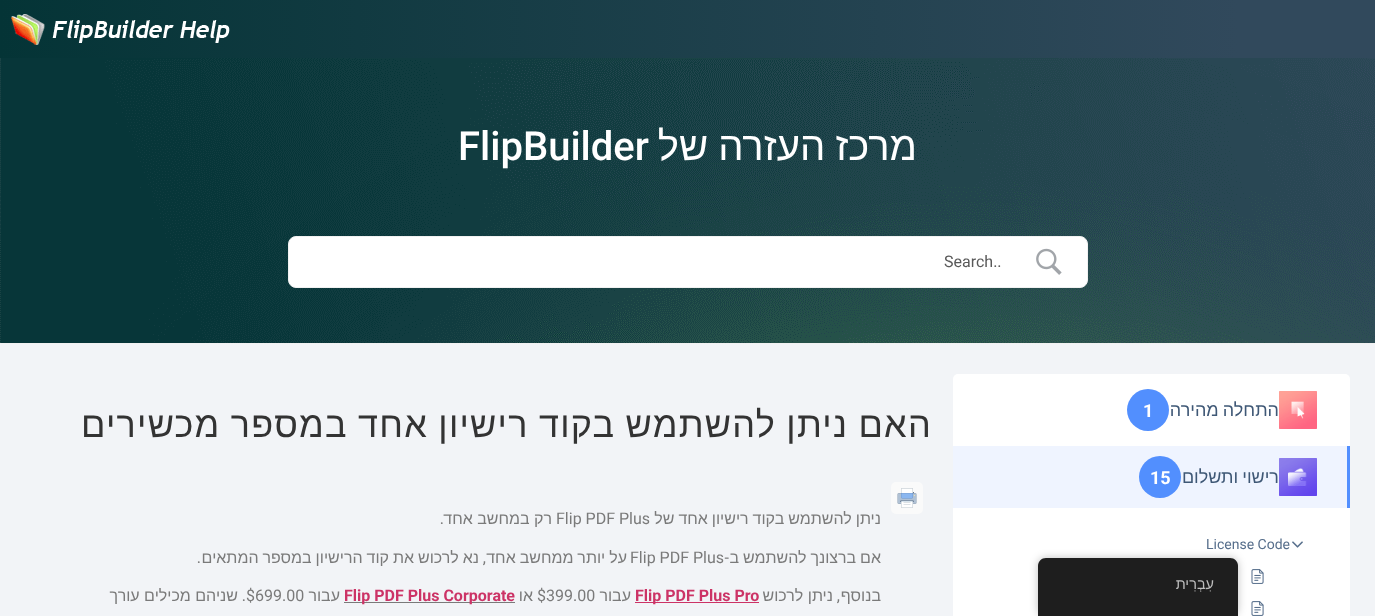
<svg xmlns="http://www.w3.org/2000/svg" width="1375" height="616">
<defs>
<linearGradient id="g1" gradientUnits="userSpaceOnUse" x1="0" y1="29" x2="1375" y2="29"><stop offset="0" stop-color="#043436"/><stop offset="0.9" stop-color="#31495c"/></linearGradient>
</defs>
<rect width="100%" height="100%" fill="#f2f4f7"/>
<rect width="1375" height="58" fill="url(#g1)"/>
<image x="11" y="14" width="219" height="31" href="media/1.png"/>
<image x="0" y="58" width="1375" height="285" href="media/2.png"/>
<rect y="343" width="1375" height="1" fill="#f1f1f1"/>
<text x="917" y="160" word-spacing="-1" style="font-family:Liberation Sans;font-size:40px;direction:rtl;fill:#fff">מרכז העזרה של</text>
<text x="458" y="160" style="font-family:Roboto;font-size:40px;font-weight:500;fill:#fff">FlipBuilder</text>
<rect x="288.5" y="236.5" width="799" height="51" rx="7.5" fill="#fff" stroke="#f1f1f1"/>
<image x="1036" y="248" width="26" height="27" href="media/3.png"/>
<text x="944" y="267" style="font-family:Roboto;font-size:16px;fill:#595959">Search..</text>
<rect x="953" y="374" width="397" height="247" rx="5" fill="#fff"/>
<image x="1279" y="391" width="38" height="38" href="media/4.png"/>
<text x="1279" y="416" word-spacing="-1" style="font-family:Liberation Sans;font-size:18px;direction:rtl;fill:#3f5876">התחלה מהירה</text>
<circle cx="1148" cy="410" r="21" fill="#528ffe"/>
<text x="1143" y="417" style="font-family:Roboto;font-size:18px;font-weight:bold;fill:#fff">1</text>
<rect x="953" y="446" width="394" height="62" fill="#eff4ff"/>
<rect x="1347" y="446" width="3" height="62" fill="#528fff"/>
<image x="1279" y="458" width="38" height="38" href="media/5.png"/>
<text x="1279" y="483" word-spacing="-1" style="font-family:Liberation Sans;font-size:18px;direction:rtl;fill:#3f5876">רישוי ותשלום</text>
<circle cx="1160" cy="477" r="21" fill="#528ffe"/>
<text x="1150" y="484" style="font-family:Roboto;font-size:18px;font-weight:bold;fill:#fff">15</text>
<image x="1292" y="541" width="11" height="7" href="media/6.png"/>
<text x="1206" y="549" style="font-family:Roboto;font-size:14px;fill:#566e8b">License Code</text>
<image x="1251" y="569" width="13" height="15" href="media/7.png"/>
<image x="1251" y="601" width="13" height="15" href="media/8.png"/>
<text x="932" y="437" word-spacing="-1" style="font-family:Liberation Sans;font-size:36px;letter-spacing:1.25px;direction:rtl;fill:#333">האם ניתן להשתמש בקוד רישיון אחד במספר מכשירים</text>
<rect x="891" y="482" width="32" height="32" rx="5" fill="#fafafa"/>
<image x="897" y="488" width="20" height="20" href="media/9.png"/>
<text x="881" y="524" word-spacing="-0.5" style="font-family:Liberation Sans;font-size:16px;direction:rtl;fill:#7a7a7a">ניתן להשתמש בקוד רישיון אחד של</text>
<text x="556" y="524" style="font-family:Roboto;font-size:16px;fill:#7a7a7a">Flip PDF Plus</text>
<text x="552" y="524" style="font-family:Liberation Sans;font-size:16px;direction:rtl;fill:#7a7a7a">רק במחשב אחד</text>
<text x="444" y="524" style="font-family:Roboto;font-size:16px;direction:rtl;fill:#7a7a7a">.</text>
<text x="881" y="563" word-spacing="-0.5" style="font-family:Liberation Sans;font-size:16px;direction:rtl;fill:#7a7a7a">אם ברצונך להשתמש ב</text>
<text x="729" y="563" style="font-family:Roboto;font-size:16px;direction:rtl;fill:#7a7a7a">-</text>
<text x="630" y="563" style="font-family:Roboto;font-size:16px;fill:#7a7a7a">Flip PDF Plus</text>
<text x="627" y="563" word-spacing="-0.5" style="font-family:Liberation Sans;font-size:16px;direction:rtl;fill:#7a7a7a">על יותר ממחשב אחד</text>
<text x="479" y="563" word-spacing="-0.5" style="font-family:Liberation Sans;font-size:16px;direction:rtl;fill:#7a7a7a">נא לרכוש את קוד הרישיון במספר המתאים</text>
<text x="486" y="563" style="font-family:Roboto;font-size:16px;direction:rtl;fill:#7a7a7a">,</text>
<text x="201" y="563" style="font-family:Roboto;font-size:16px;direction:rtl;fill:#7a7a7a">.</text>
<text x="881" y="601" style="font-family:Liberation Sans;font-size:16px;direction:rtl;fill:#7a7a7a">בנוסף</text>
<text x="840" y="601" style="font-family:Roboto;font-size:16px;direction:rtl;fill:#7a7a7a">,</text>
<text x="833" y="601" style="font-family:Liberation Sans;font-size:16px;direction:rtl;fill:#7a7a7a">ניתן לרכוש</text>
<rect x="635" y="602" width="124" height="1" fill="#c36"/>
<text x="635" y="601" style="font-family:Roboto;font-size:16px;font-weight:bold;fill:#c36">Flip PDF Plus Pro</text>
<text x="631" y="601" style="font-family:Liberation Sans;font-size:16px;direction:rtl;fill:#7a7a7a">עבור</text>
<text x="537" y="601" style="font-family:Roboto;font-size:16px;fill:#7a7a7a">$399.00</text>
<text x="533" y="601" style="font-family:Liberation Sans;font-size:16px;direction:rtl;fill:#7a7a7a">או</text>
<rect x="344" y="602" width="171" height="1" fill="#7a7a7a"/>
<text x="344" y="601" style="font-family:Roboto;font-size:16px;font-weight:bold;fill:#c36">Flip PDF Plus Corporate</text>
<text x="340" y="601" style="font-family:Liberation Sans;font-size:16px;direction:rtl;fill:#7a7a7a">עבור</text>
<text x="246" y="601" style="font-family:Roboto;font-size:16px;fill:#7a7a7a">$699.00</text>
<text x="246" y="601" style="font-family:Roboto;font-size:16px;direction:rtl;fill:#7a7a7a">.</text>
<text x="238" y="601" style="font-family:Liberation Sans;font-size:16px;direction:rtl;fill:#7a7a7a">שניהם מכילים עורך</text>
<rect x="1038" y="558" width="200" height="58" rx="8" fill="#00000040" filter="blur(4px)"/>
<path d="M1046 558h184c4.5 0 8 3.5 8 8v50h-200v-50c0-4.5 3.5-8 8-8z" fill="#1e1e1e"/>
<text x="1214" y="589" style="font-family:Liberation Sans;font-size:14.5px;direction:rtl;fill:#bdbdbd">עִבְרִית</text>
</svg>
